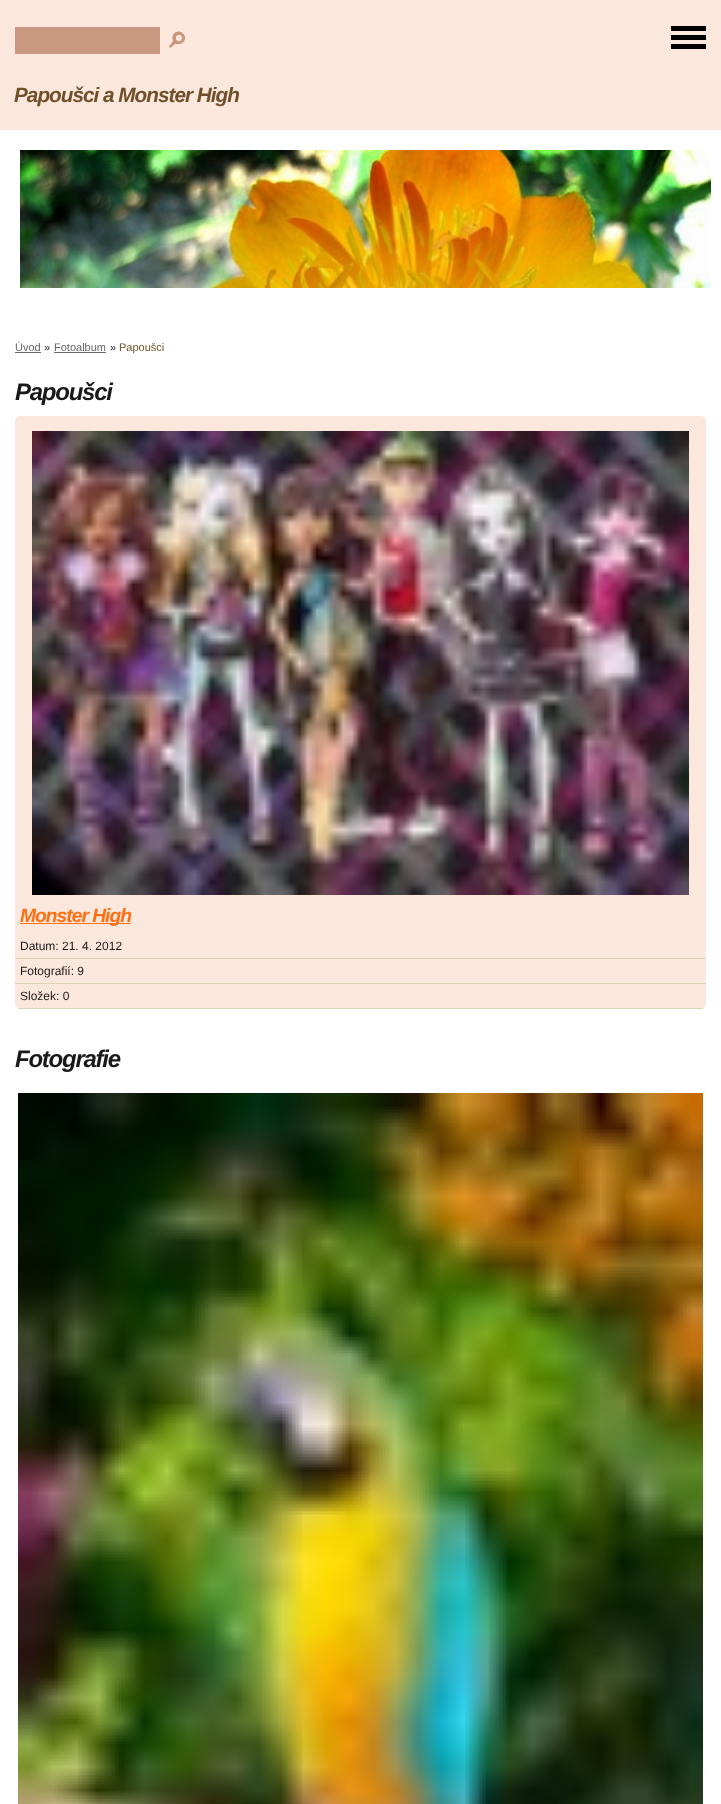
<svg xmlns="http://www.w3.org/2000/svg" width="721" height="1804">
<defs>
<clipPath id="clip1"><rect x="15" y="416" width="691" height="593" rx="5"/></clipPath>
</defs>
<rect width="100%" height="100%" fill="#fce7dc"/>
<rect y="130" width="721" height="1674" fill="#fff"/>
<rect x="15" y="27" width="145" height="27" fill="#ca9780"/>
<image x="169" y="31" width="16" height="18" href="media/1.png"/>
<rect x="671" y="26" width="35" height="5" fill="#000"/>
<rect x="671" y="35" width="35" height="5" fill="#000"/>
<rect x="671" y="44" width="35" height="5" fill="#000"/>
<image x="20" y="150" width="691" height="138" href="media/2.png"/>
<text x="14" y="102" style="font-family:Liberation Sans;font-size:20.75px;font-weight:bold;font-style:italic;letter-spacing:-1px;fill:#70502b">Papoušci a Monster High</text>
<text x="15" y="351" style="font-family:Liberation Sans;font-size:11px;fill:#666">Úvod</text>
<rect x="15" y="352" width="26" height="1" fill="#666"/>
<text x="44" y="351" style="font-family:Liberation Sans;font-size:11px;fill:#191919">»</text>
<text x="54" y="351" style="font-family:Liberation Sans;font-size:11px;fill:#666">Fotoalbum</text>
<rect x="54" y="352" width="52" height="1" fill="#666"/>
<text x="110" y="351" style="font-family:Liberation Sans;font-size:11px;fill:#191919">»</text>
<text x="119" y="351" style="font-family:Liberation Sans;font-size:11px;fill:#70502b">Papoušci</text>
<text x="15" y="400" style="font-family:Liberation Sans;font-size:24px;font-weight:bold;font-style:italic;letter-spacing:-1.25px;fill:#191919">Papoušci</text>
<rect x="15" y="416" width="691" height="593" rx="5" fill="#fce7dc"/>
<image x="32" y="431" width="657" height="464" href="media/3.png"/>
<rect x="20" y="923" width="111" height="1" fill="#ff6f12"/>
<text x="20" y="922" style="font-family:Liberation Sans;font-size:19.25px;font-weight:bold;font-style:italic;letter-spacing:-1px;fill:#ff6f12">Monster High</text>
<rect x="15" y="958" width="691" height="1" fill="#ddd3b9"/>
<text x="20" y="950" style="font-family:Liberation Sans;font-size:12px;fill:#191919">Datum: 21. 4. 2012</text>
<rect x="15" y="983" width="691" height="1" fill="#ddd3b9"/>
<text x="20" y="975" style="font-family:Liberation Sans;font-size:12px;fill:#191919">Fotografií: 9</text>
<g clip-path="url(#clip1)">
<rect x="15" y="1008" width="691" height="1" fill="#ddd3b9"/>
</g>
<text x="20" y="1000" style="font-family:Liberation Sans;font-size:12px;fill:#191919">Složek: 0</text>
<text x="15" y="1067" style="font-family:Liberation Sans;font-size:24px;font-weight:bold;font-style:italic;letter-spacing:-1.25px;fill:#191919">Fotografie</text>
<image x="18" y="1093" width="685" height="711" href="media/4.png"/>
</svg>
